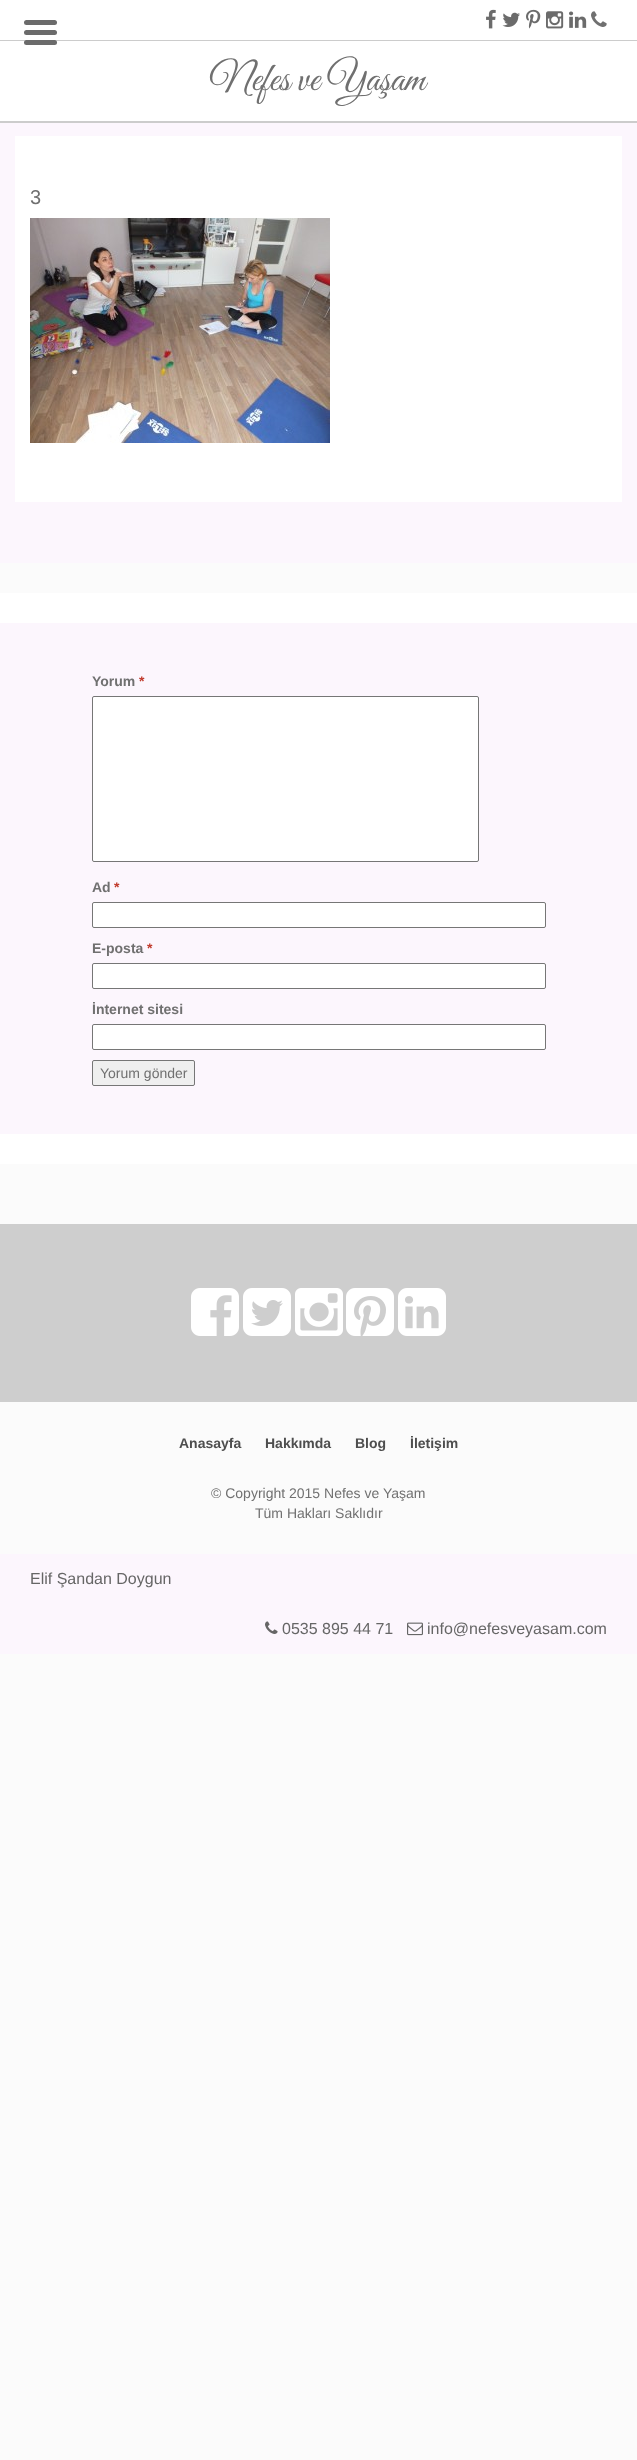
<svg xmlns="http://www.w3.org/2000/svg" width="637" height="2460">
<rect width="100%" height="100%" fill="#fbfbfb"/>
<rect width="637" height="121" fill="#fff"/>
<rect x="24" y="30" width="33" height="5" rx="2.5" fill="#6b6b6b"/>
<rect x="24" y="20" width="33" height="5" rx="2.5" fill="#6b6b6b"/>
<rect y="40" width="637" height="1" fill="#ccc"/>
<rect x="24" y="40" width="33" height="5" rx="2.5" fill="#6b6b6b"/>
<image x="486" y="9" width="10" height="20" href="media/1.png"/>
<image x="502" y="12" width="18" height="15" href="media/2.png"/>
<image x="526" y="9" width="15" height="20" href="media/3.png"/>
<image x="546" y="11" width="18" height="18" href="media/4.png"/>
<image x="569" y="11" width="18" height="17" href="media/5.png"/>
<image x="591" y="11" width="16" height="16" href="media/6.png"/>
<rect y="121" width="637" height="2" fill="#ccc"/>
<text x="210" y="90" style="font-family:Great Vibes;font-size:40px;fill:#707070">Nefes ve Yaşam</text>
<rect y="123" width="637" height="440" fill="#fcf6fd"/>
<rect x="15" y="136" width="607" height="366" fill="#fff"/>
<text x="30" y="204" style="font-family:Liberation Sans;font-size:20px;fill:#707070">3</text>
<image x="30" y="218" width="300" height="225" href="media/7.png"/>
<rect y="593" width="637" height="571" fill="#fff"/>
<rect y="623" width="637" height="511" fill="#fcf6fd"/>
<text x="92" y="686" style="font-family:Liberation Sans;font-size:14px;font-weight:bold;fill:#707070">Yorum</text>
<text x="139" y="686" style="font-family:Liberation Sans;font-size:14px;font-weight:bold;fill:#c0392b">*</text>
<rect x="92.5" y="696.5" width="386" height="165" rx="1.5" fill="#fff" stroke="#767676"/>
<text x="92" y="892" style="font-family:Liberation Sans;font-size:14px;font-weight:bold;fill:#707070">Ad</text>
<text x="114" y="892" style="font-family:Liberation Sans;font-size:14px;font-weight:bold;fill:#c0392b">*</text>
<rect x="92.5" y="902.5" width="453" height="25" rx="1.5" fill="#fff" stroke="#767676"/>
<text x="92" y="953" style="font-family:Liberation Sans;font-size:14px;font-weight:bold;fill:#707070">E-posta</text>
<text x="147" y="953" style="font-family:Liberation Sans;font-size:14px;font-weight:bold;fill:#c0392b">*</text>
<rect x="92.5" y="963.5" width="453" height="25" rx="1.5" fill="#fff" stroke="#767676"/>
<text x="92" y="1014" style="font-family:Liberation Sans;font-size:14px;font-weight:bold;fill:#707070">İnternet sitesi</text>
<rect x="92.5" y="1024.5" width="453" height="25" rx="1.5" fill="#fff" stroke="#767676"/>
<rect x="92.5" y="1060.5" width="102" height="25" rx="1.5" fill="#efefef" stroke="#767676"/>
<text x="100" y="1078" style="font-family:Liberation Sans;font-size:14px;fill:#707070">Yorum gönder</text>
<rect y="1224" width="637" height="178" fill="#cecece"/>
<image x="191" y="1288" width="48" height="48" href="media/8.png"/>
<image x="243" y="1288" width="48" height="48" href="media/9.png"/>
<image x="295" y="1288" width="48" height="48" href="media/10.png"/>
<image x="346" y="1288" width="48" height="48" href="media/11.png"/>
<image x="398" y="1288" width="48" height="48" href="media/12.png"/>
<text x="179" y="1448" style="font-family:Liberation Sans;font-size:14px;font-weight:bold;fill:#4e4e4e">Anasayfa</text>
<text x="265" y="1448" style="font-family:Liberation Sans;font-size:14px;font-weight:bold;fill:#4e4e4e">Hakkımda</text>
<text x="355" y="1448" style="font-family:Liberation Sans;font-size:14px;font-weight:bold;fill:#4e4e4e">Blog</text>
<text x="410" y="1448" style="font-family:Liberation Sans;font-size:14px;font-weight:bold;fill:#4e4e4e">İletişim</text>
<text x="211" y="1498" style="font-family:Liberation Sans;font-size:14px;fill:#707070">© Copyright 2015 Nefes ve Yaşam</text>
<text x="255" y="1518" style="font-family:Liberation Sans;font-size:14px;fill:#707070">Tüm Hakları Saklıdır</text>
<rect y="1554" width="637" height="100" fill="#fcf6fd"/>
<text x="30" y="1584" style="font-family:Liberation Sans;font-size:16px;fill:#666">Elif Şandan Doygun</text>
<image x="265" y="1621" width="13" height="13" href="media/13.png"/>
<text x="282" y="1634" style="font-family:Liberation Sans;font-size:16px;fill:#666">0535 895 44 71</text>
<image x="407" y="1622" width="16" height="14" href="media/14.png"/>
<text x="427" y="1634" style="font-family:Liberation Sans;font-size:16px;fill:#666">info@nefesveyasam.com</text>
</svg>
